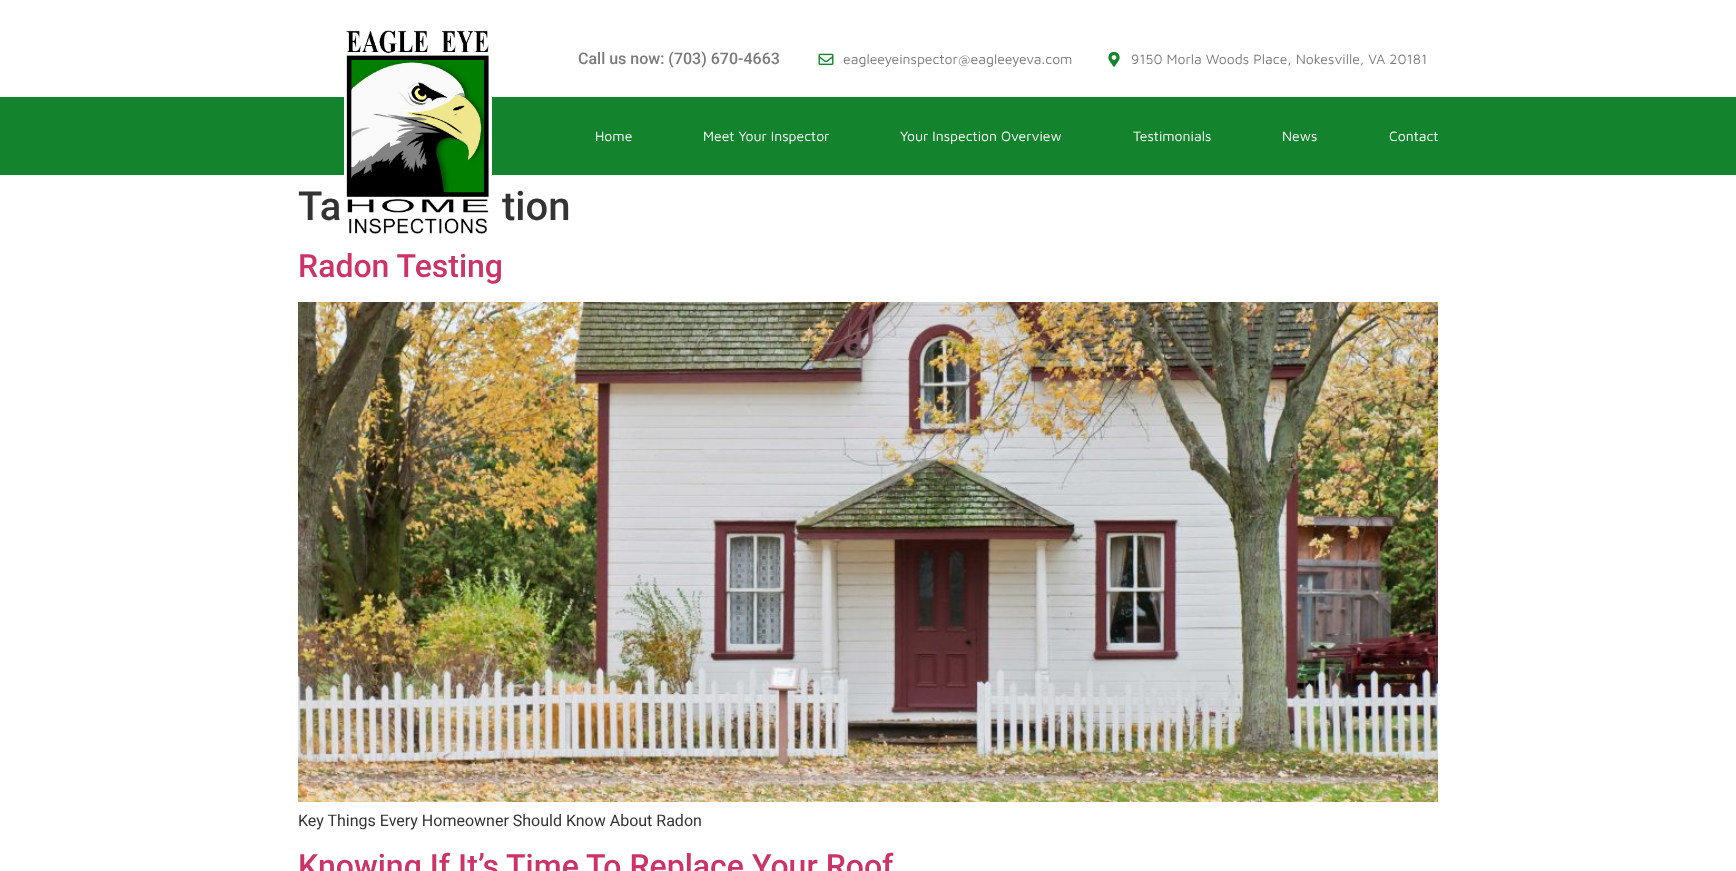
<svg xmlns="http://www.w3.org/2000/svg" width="1736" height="871">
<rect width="100%" height="100%" fill="#fff"/>
<rect y="97" width="1736" height="78" fill="#13842d"/>
<image x="344" y="30" width="148" height="204" href="media/1.png"/>
<text x="578" y="64" style="font-family:Roboto;font-size:16px;font-weight:500;fill:#7a7a7a">Call us now: (703) 670-4663</text>
<image x="818" y="53" width="16" height="12" href="media/2.png"/>
<text x="843" y="64" style="font-family:Maven Pro;font-size:14px;fill:#7a7a7a">eagleeyeinspector@eagleeyeva.com</text>
<image x="1108" y="51" width="12" height="16" href="media/3.png"/>
<text x="1131" y="64" style="font-family:Maven Pro;font-size:14px;fill:#7a7a7a">9150 Morla Woods Place, Nokesville, VA 20181</text>
<text x="595" y="141" style="font-family:Maven Pro;font-size:14px;fill:#fff">Home</text>
<text x="703" y="141" style="font-family:Maven Pro;font-size:14px;fill:#fff">Meet Your Inspector</text>
<text x="900" y="141" style="font-family:Maven Pro;font-size:14px;fill:#fff">Your Inspection Overview</text>
<text x="1133" y="141" style="font-family:Maven Pro;font-size:14px;fill:#fff">Testimonials</text>
<text x="1282" y="141" style="font-family:Maven Pro;font-size:14px;fill:#fff">News</text>
<text x="1389" y="141" style="font-family:Maven Pro;font-size:14px;fill:#fff">Contact</text>
<text x="298" y="220" style="font-family:Roboto;font-size:40px;font-weight:500;fill:#333">Ta</text>
<text x="502" y="220" style="font-family:Roboto;font-size:40px;font-weight:500;fill:#333">tion</text>
<text x="298" y="277" style="font-family:Roboto;font-size:32px;font-weight:500;fill:#c36">Radon Testing</text>
<image x="298" y="302" width="1140" height="500" href="media/4.png"/>
<text x="298" y="826" style="font-family:Roboto;font-size:16px;fill:#333">Key Things Every Homeowner Should Know About Radon</text>
<text x="298" y="877" style="font-family:Roboto;font-size:32px;font-weight:500;fill:#c36">Knowing If It’s Time To Replace Your Roof</text>
</svg>
